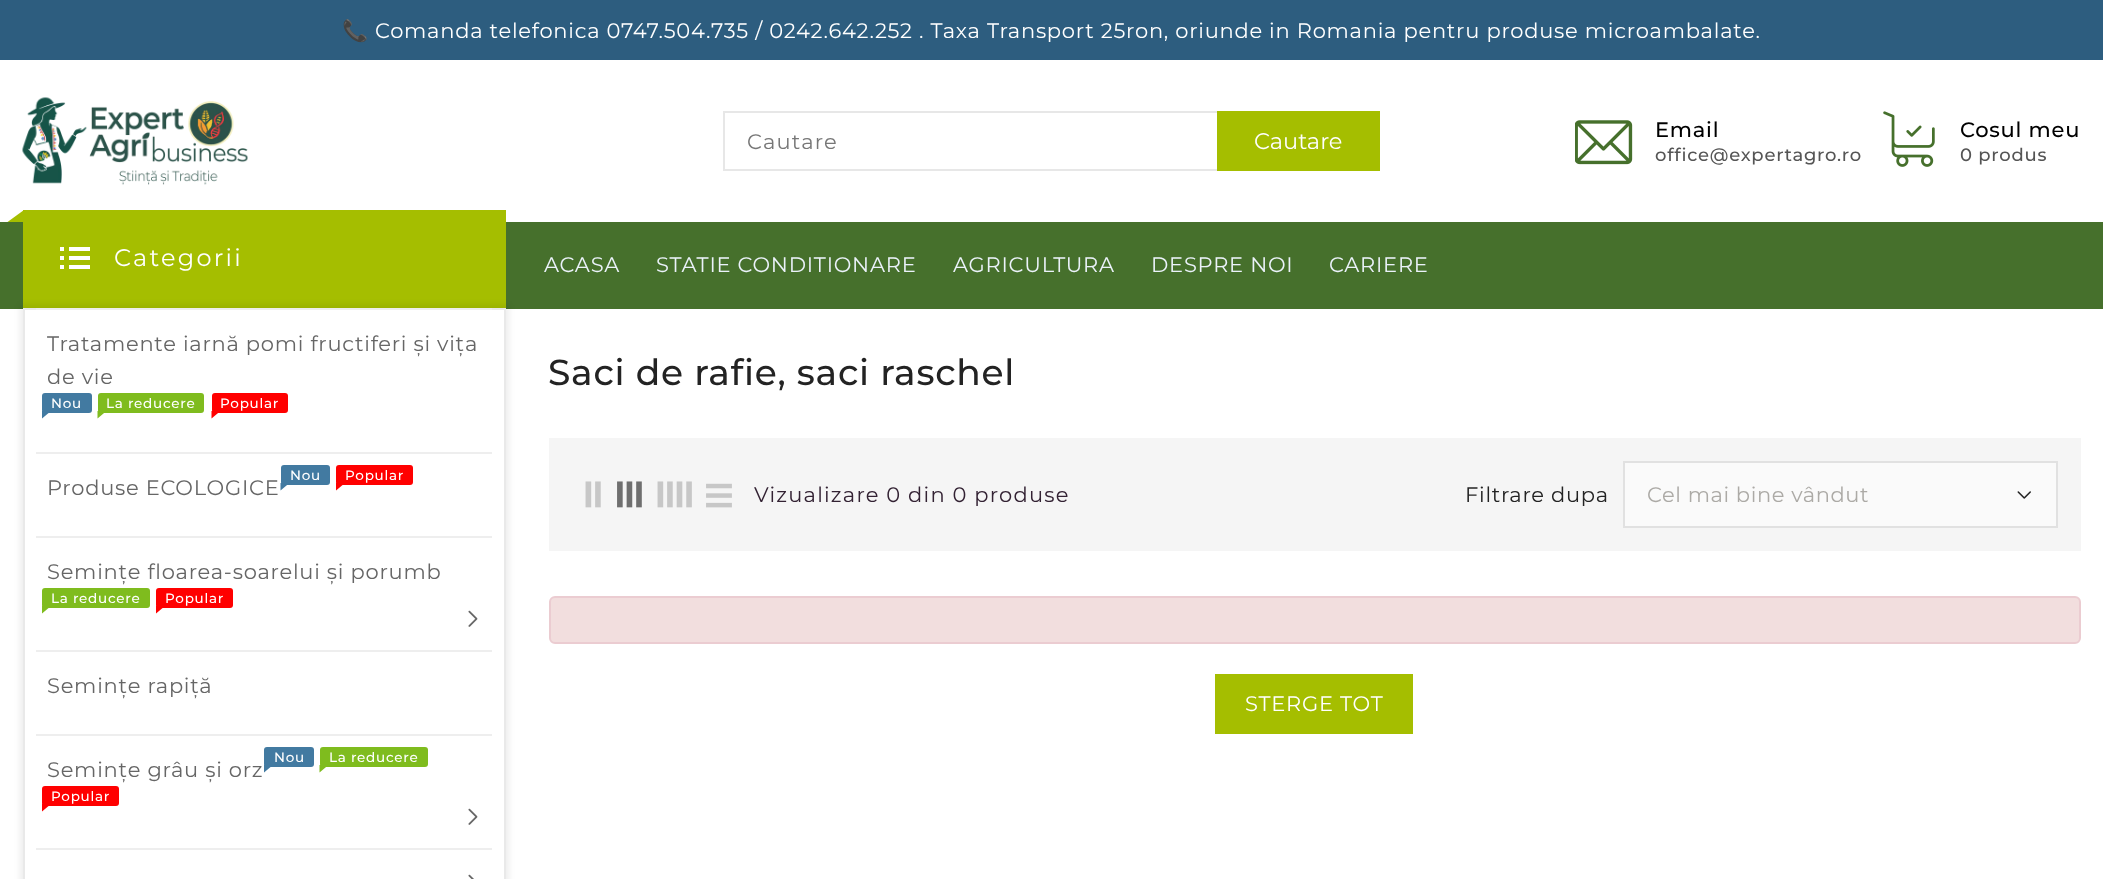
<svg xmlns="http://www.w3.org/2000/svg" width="2103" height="879">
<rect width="100%" height="100%" fill="#fff"/>
<rect width="2103" height="60" fill="#2d5d7f"/>
<text x="342" y="38" style="font-family:Noto Color Emoji;font-size:21px;letter-spacing:0.75px;fill:#fff">📞</text>
<text x="375" y="38" style="font-family:Montserrat;font-size:21px;letter-spacing:0.75px;fill:#fff">Comanda telefonica 0747.504.735 / 0242.642.252 . Taxa Transport 25ron, oriunde in Romania pentru produse microambalate.</text>
<image x="22" y="97" width="226" height="88" href="media/1.png"/>
<rect x="724" y="112" width="655" height="58" fill="none" stroke="#e7e7e7" stroke-width="2"/>
<text x="747" y="149" style="font-family:Montserrat;font-size:21px;letter-spacing:1.2px;fill:#777">Cautare</text>
<rect x="1217" y="111" width="163" height="60" fill="#a5be00"/>
<text x="1254" y="149" style="font-family:Montserrat;font-size:22.5px;fill:#fff">Cautare</text>
<image x="1575" y="120" width="58" height="45" href="media/2.png"/>
<text x="1655" y="137" style="font-family:Montserrat;font-size:21px;font-weight:500;letter-spacing:0.75px;fill:#000">Email</text>
<text x="1655" y="161" style="font-family:Montserrat;font-size:18px;font-weight:500;letter-spacing:0.75px;fill:#555">office@expertagro.ro</text>
<image x="1883" y="111" width="52" height="56" href="media/3.png"/>
<text x="1960" y="137" style="font-family:Montserrat;font-size:21px;font-weight:500;letter-spacing:0.75px;fill:#000">Cosul meu</text>
<text x="1960" y="161" style="font-family:Montserrat;font-size:18px;font-weight:500;letter-spacing:0.75px;fill:#555">0 produs</text>
<rect y="222" width="2103" height="87" fill="#46702c"/>
<rect x="23" y="210" width="483" height="98" fill="#a5be00"/>
<path d="M24 222h-16.5l16.5-12z" fill="#a5be00"/>
<rect x="60" y="247" width="4" height="4" fill="#fff"/>
<rect x="69" y="247" width="21" height="4" fill="#fff"/>
<rect x="60" y="256" width="4" height="4" fill="#fff"/>
<rect x="69" y="256" width="21" height="4" fill="#fff"/>
<rect x="60" y="265" width="4" height="4" fill="#fff"/>
<rect x="69" y="265" width="21" height="4" fill="#fff"/>
<text x="114" y="266" style="font-family:Montserrat;font-size:24px;letter-spacing:2.25px;fill:#fff">Categorii</text>
<rect x="20" y="305" width="489" height="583" fill="#00000012" filter="blur(3px)"/>
<rect x="24" y="309" width="481" height="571" fill="#fff" stroke="#e9e9e9" stroke-width="2"/>
<rect x="36" y="308" width="456" height="2" fill="#eee"/>
<text x="47" y="351" style="font-family:Montserrat;font-size:21px;letter-spacing:0.75px;fill:#666">Tratamente iarnă pomi fructiferi și vița</text>
<text x="47" y="384" style="font-family:Montserrat;font-size:21px;letter-spacing:0.75px;fill:#666">de vie</text>
<rect x="42" y="393" width="50" height="20" rx="3" fill="#427aa1"/>
<text x="51" y="408" style="font-family:Montserrat;font-size:13.5px;font-weight:500;letter-spacing:0.75px;fill:#fff">Nou</text>
<path d="M42 411h9l-9 7.5z" fill="#427aa1"/>
<rect x="98" y="393" width="106" height="20" rx="3" fill="#7fbc1e"/>
<text x="106" y="408" style="font-family:Montserrat;font-size:13.5px;font-weight:500;letter-spacing:0.75px;fill:#fff">La reducere</text>
<path d="M97.5 411h9l-9 7.5z" fill="#7fbc1e"/>
<rect x="212" y="393" width="76" height="20" rx="3" fill="#f00"/>
<text x="220" y="408" style="font-family:Montserrat;font-size:13.5px;font-weight:500;letter-spacing:0.75px;fill:#fff">Popular</text>
<path d="M211.5 411h9l-9 7.5z" fill="#f00"/>
<rect x="36" y="452" width="456" height="2" fill="#eee"/>
<rect x="281" y="465" width="49" height="20" rx="3" fill="#427aa1"/>
<text x="290" y="480" style="font-family:Montserrat;font-size:13.5px;font-weight:500;letter-spacing:0.75px;fill:#fff">Nou</text>
<path d="M280.5 483h9l-9 7.5z" fill="#427aa1"/>
<rect x="336" y="465" width="77" height="20" rx="3" fill="#f00"/>
<text x="345" y="480" style="font-family:Montserrat;font-size:13.5px;font-weight:500;letter-spacing:0.75px;fill:#fff">Popular</text>
<path d="M336 483h9l-9 7.5z" fill="#f00"/>
<text x="47" y="495" style="font-family:Montserrat;font-size:21px;letter-spacing:0.75px;fill:#666">Produse ECOLOGICE</text>
<rect x="36" y="536" width="456" height="2" fill="#eee"/>
<text x="47" y="579" style="font-family:Montserrat;font-size:21px;letter-spacing:0.75px;fill:#666">Semințe floarea-soarelui și porumb</text>
<rect x="42" y="588" width="108" height="20" rx="3" fill="#7fbc1e"/>
<text x="51" y="603" style="font-family:Montserrat;font-size:13.5px;font-weight:500;letter-spacing:0.75px;fill:#fff">La reducere</text>
<path d="M42 606h9l-9 7.5z" fill="#7fbc1e"/>
<rect x="156" y="588" width="77" height="20" rx="3" fill="#f00"/>
<text x="165" y="603" style="font-family:Montserrat;font-size:13.5px;font-weight:500;letter-spacing:0.75px;fill:#fff">Popular</text>
<path d="M156 606h9l-9 7.5z" fill="#f00"/>
<image x="468" y="610" width="10" height="17" href="media/4.png"/>
<rect x="36" y="650" width="456" height="2" fill="#eee"/>
<text x="47" y="693" style="font-family:Montserrat;font-size:21px;letter-spacing:0.75px;fill:#666">Semințe rapiță</text>
<rect x="36" y="734" width="456" height="2" fill="#eee"/>
<rect x="264" y="747" width="50" height="20" rx="3" fill="#427aa1"/>
<text x="274" y="762" style="font-family:Montserrat;font-size:13.5px;font-weight:500;letter-spacing:0.75px;fill:#fff">Nou</text>
<path d="M264 765h9l-9 7.5z" fill="#427aa1"/>
<rect x="320" y="747" width="108" height="20" rx="3" fill="#7fbc1e"/>
<text x="329" y="762" style="font-family:Montserrat;font-size:13.5px;font-weight:500;letter-spacing:0.75px;fill:#fff">La reducere</text>
<path d="M319.5 765h9l-9 7.5z" fill="#7fbc1e"/>
<text x="47" y="777" style="font-family:Montserrat;font-size:21px;letter-spacing:0.75px;fill:#666">Semințe grâu și orz</text>
<rect x="42" y="786" width="77" height="20" rx="3" fill="#f00"/>
<text x="51" y="801" style="font-family:Montserrat;font-size:13.5px;font-weight:500;letter-spacing:0.75px;fill:#fff">Popular</text>
<path d="M42 804h9l-9 7.5z" fill="#f00"/>
<image x="468" y="808" width="10" height="17" href="media/4.png"/>
<rect x="36" y="848" width="456" height="2" fill="#eee"/>
<image x="468" y="874" width="6" height="5" href="media/5.png"/>
<text x="544" y="272" style="font-family:Montserrat;font-size:21px;letter-spacing:0.75px;fill:#ebf2fa">ACASA</text>
<text x="656" y="272" style="font-family:Montserrat;font-size:21px;letter-spacing:0.75px;fill:#ebf2fa">STATIE CONDITIONARE</text>
<text x="953" y="272" style="font-family:Montserrat;font-size:21px;letter-spacing:0.75px;fill:#ebf2fa">AGRICULTURA</text>
<text x="1151" y="272" style="font-family:Montserrat;font-size:21px;letter-spacing:0.75px;fill:#ebf2fa">DESPRE NOI</text>
<text x="1329" y="272" style="font-family:Montserrat;font-size:21px;letter-spacing:0.75px;fill:#ebf2fa">CARIERE</text>
<text x="548" y="385" style="font-family:Montserrat;font-size:36px;font-weight:500;letter-spacing:0.75px;fill:#232323">Saci de rafie, saci raschel</text>
<rect x="549" y="438" width="1532" height="113" fill="#f5f5f5"/>
<image x="585" y="481" width="16" height="27" href="media/6.png"/>
<image x="617" y="481" width="25" height="27" href="media/7.png"/>
<image x="657" y="481" width="35" height="27" href="media/8.png"/>
<image x="706" y="483" width="26" height="25" href="media/9.png"/>
<text x="754" y="502" style="font-family:Montserrat;font-size:21px;letter-spacing:1.2px;fill:#323">Vizualizare 0 din 0 produse</text>
<text x="1465" y="502" style="font-family:Montserrat;font-size:21px;letter-spacing:0.75px;fill:#232323">Filtrare dupa</text>
<rect x="1624" y="462" width="433" height="65" fill="#fafafa" stroke="#e1e1e1" stroke-width="2"/>
<text x="1647" y="502" style="font-family:Montserrat;font-size:21px;letter-spacing:0.6px;fill:#acaaa6">Cel mai bine vândut</text>
<image x="2017" y="491" width="14" height="8" href="media/10.png"/>
<rect x="550" y="597" width="1530" height="46" rx="5" fill="#f2dede" stroke="#ebccd1" stroke-width="2"/>
<rect x="1215" y="674" width="198" height="60" fill="#a5be00"/>
<text x="1245" y="711" style="font-family:Montserrat;font-size:21px;letter-spacing:0.75px;fill:#fff">STERGE TOT</text>
</svg>
